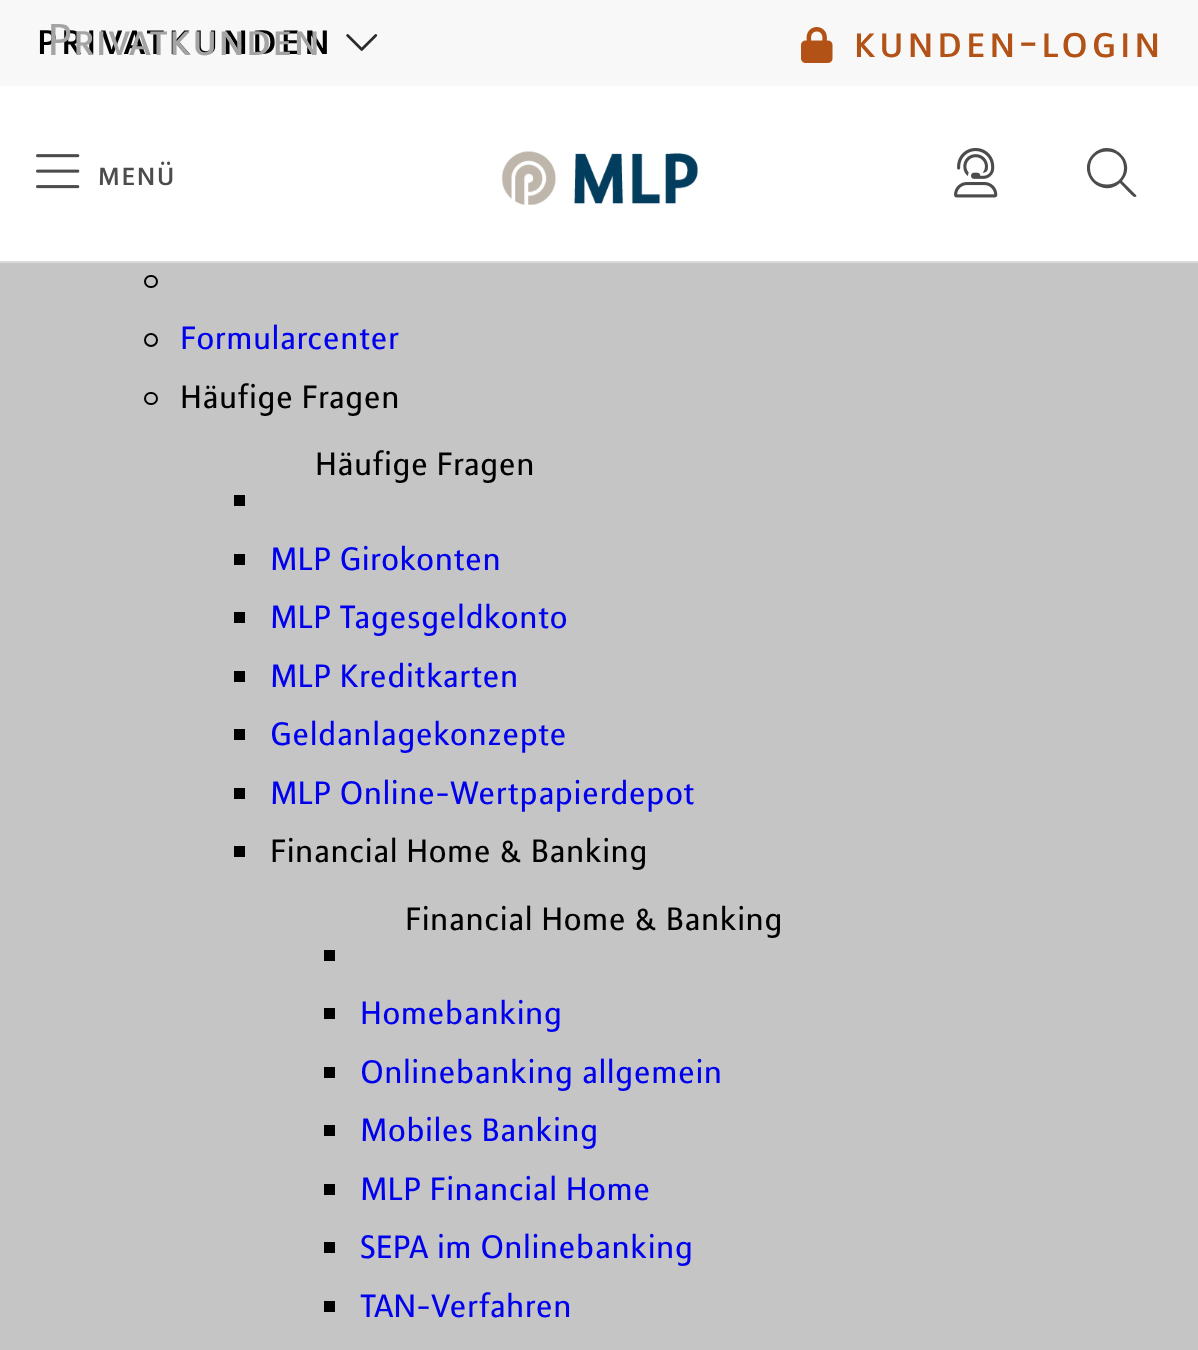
<svg xmlns="http://www.w3.org/2000/svg" width="1198" height="1350">
<rect width="100%" height="100%" fill="#c5c5c5"/>
<rect y="86" width="1198" height="175" fill="#fff"/>
<rect y="261" width="1198" height="2" fill="#dbdbdb"/>
<rect width="1198" height="86" fill="#f8f8f8"/>
<text x="36" y="54" style="font-family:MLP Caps;font-size:49.5px;letter-spacing:2.25px;fill:#000">privatkunden</text>
<text x="47" y="55" style="font-family:MLP Caps;font-size:49.5px;fill:#a4a4a4">Privatkunden</text>
<image x="346" y="34" width="32" height="17" href="media/1.png"/>
<image x="801" y="27" width="32" height="36" href="media/2.png"/>
<text x="853" y="57" style="font-family:MLP Caps;font-size:49.5px;letter-spacing:2.25px;fill:#b25217">kunden-login</text>
<image x="36" y="154" width="44" height="35" href="media/3.png"/>
<text x="97" y="185" style="font-family:MLP Caps;font-size:36px;fill:#4c4c4c">menü</text>
<image x="954" y="147" width="44" height="51" href="media/4.png"/>
<path d="M1124 168c0-22-34-22-34 0c0 22 34 22 34 0zm-4 15c-19 17-45-11-27-29c18-18 46 8 29 27l14 14c1 1 0 2-1 2c-1 1-13-12-15-14z" fill="#4c4c4c"/>
<image x="501" y="151" width="197" height="54" href="media/5.png"/>
<rect x="145" y="276" width="12" height="11" rx="5.5" fill="none" stroke="#000" stroke-width="2"/>
<circle cx="151" cy="340" r="6" fill="none" stroke="#000" stroke-width="2"/>
<text x="180" y="349" style="font-family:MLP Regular;font-size:36px;fill:#00e">Formularcenter</text>
<rect x="145" y="393" width="12" height="11" rx="5.5" fill="none" stroke="#000" stroke-width="2"/>
<text x="180" y="408" style="font-family:MLP Regular;font-size:36px;fill:#000">Häufige Fragen</text>
<text x="315" y="475" style="font-family:MLP Regular;font-size:36px;fill:#000">Häufige Fragen</text>
<rect x="234" y="495" width="11" height="11" fill="#000"/>
<rect x="234" y="554" width="11" height="11" fill="#000"/>
<text x="270" y="570" style="font-family:MLP Regular;font-size:36px;fill:#00e">MLP Girokonten</text>
<rect x="234" y="612" width="11" height="11" fill="#000"/>
<text x="270" y="628" style="font-family:MLP Regular;font-size:36px;fill:#00e">MLP Tagesgeldkonto</text>
<rect x="234" y="671" width="11" height="11" fill="#000"/>
<text x="270" y="687" style="font-family:MLP Regular;font-size:36px;fill:#00e">MLP Kreditkarten</text>
<rect x="234" y="729" width="11" height="11" fill="#000"/>
<text x="270" y="745" style="font-family:MLP Regular;font-size:36px;fill:#00e">Geldanlagekonzepte</text>
<rect x="234" y="788" width="11" height="11" fill="#000"/>
<text x="270" y="804" style="font-family:MLP Regular;font-size:36px;fill:#00e">MLP Online-Wertpapierdepot</text>
<rect x="234" y="846" width="11" height="11" fill="#000"/>
<text x="270" y="862" style="font-family:MLP Regular;font-size:36px;fill:#000">Financial Home &amp; Banking</text>
<text x="405" y="930" style="font-family:MLP Regular;font-size:36px;fill:#000">Financial Home &amp; Banking</text>
<rect x="324" y="950" width="11" height="11" fill="#000"/>
<rect x="324" y="1008" width="11" height="11" fill="#000"/>
<text x="360" y="1024" style="font-family:MLP Regular;font-size:36px;fill:#00e">Homebanking</text>
<rect x="324" y="1067" width="11" height="11" fill="#000"/>
<text x="360" y="1083" style="font-family:MLP Regular;font-size:36px;fill:#00e">Onlinebanking allgemein</text>
<rect x="324" y="1125" width="11" height="11" fill="#000"/>
<text x="360" y="1141" style="font-family:MLP Regular;font-size:36px;fill:#00e">Mobiles Banking</text>
<rect x="324" y="1184" width="11" height="11" fill="#000"/>
<text x="360" y="1200" style="font-family:MLP Regular;font-size:36px;fill:#00e">MLP Financial Home</text>
<rect x="324" y="1242" width="11" height="11" fill="#000"/>
<text x="360" y="1258" style="font-family:MLP Regular;font-size:36px;fill:#00e">SEPA im Onlinebanking</text>
<rect x="324" y="1301" width="11" height="11" fill="#000"/>
<text x="360" y="1317" style="font-family:MLP Regular;font-size:36px;fill:#00e">TAN-Verfahren</text>
</svg>
